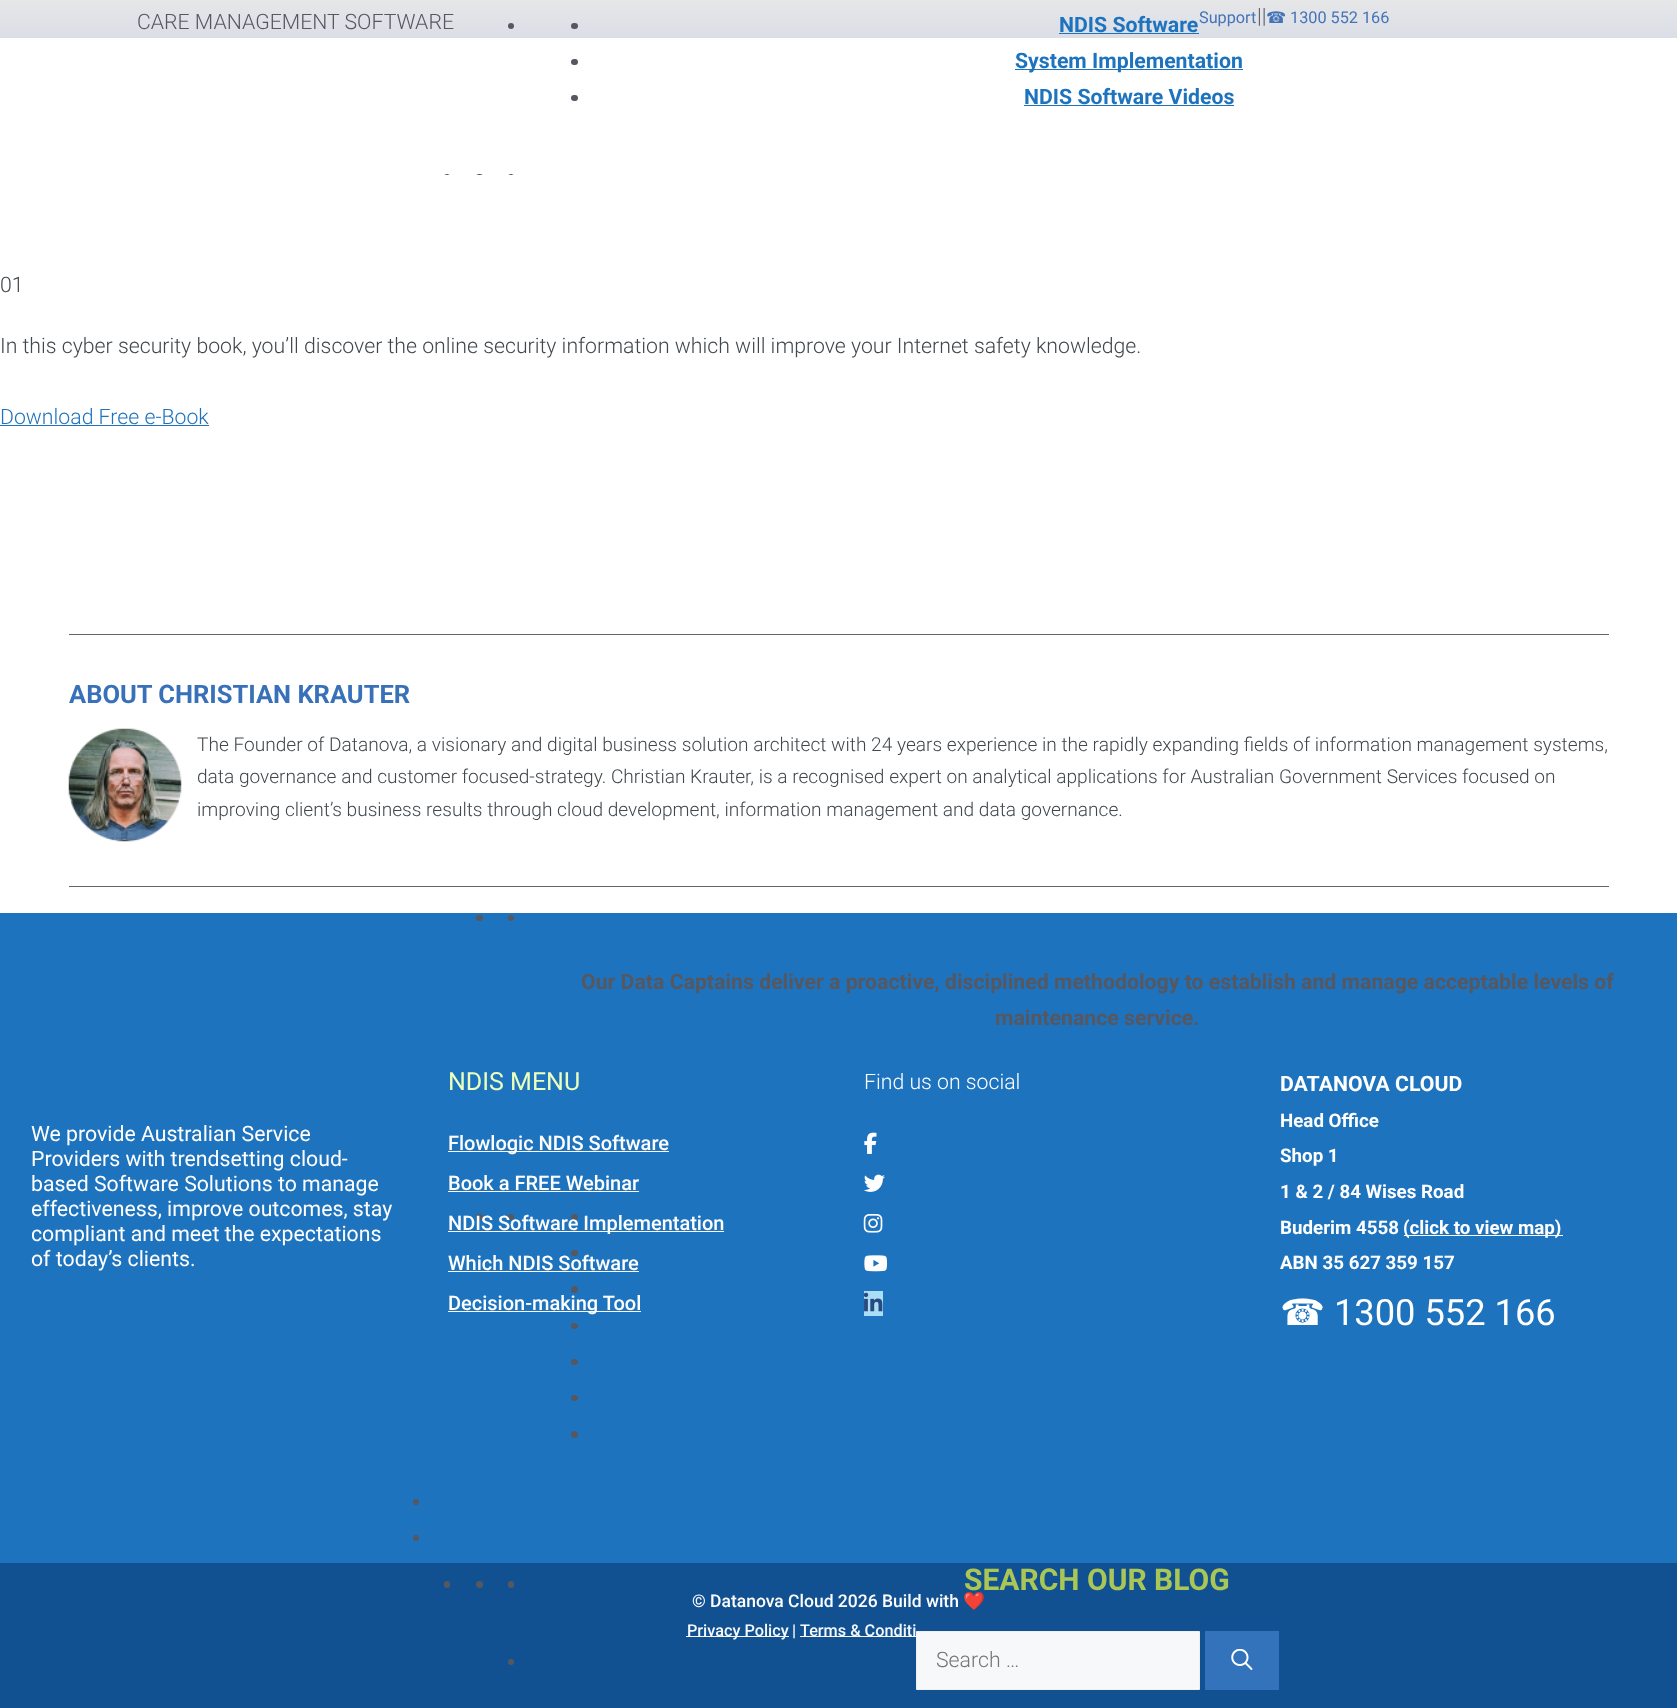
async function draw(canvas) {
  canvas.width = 1677
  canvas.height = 1708
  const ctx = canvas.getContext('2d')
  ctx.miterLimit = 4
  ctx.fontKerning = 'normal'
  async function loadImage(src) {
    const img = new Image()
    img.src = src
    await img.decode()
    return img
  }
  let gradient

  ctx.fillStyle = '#fff'
  ctx.fillRect(0, 0, 1677, 1708)
  gradient = ctx.createLinearGradient(839, 0, 839, 38)
  gradient.addColorStop(0, '#e5e7e8')
  gradient.addColorStop(1, '#dbdee6')
  ctx.fillStyle = gradient
  ctx.fillRect(0, 0, 1677, 38)
  ctx.font = '300 21.25px Roboto'
  ctx.fillStyle = '#575760'
  ctx.fillText('CARE MANAGEMENT SOFTWARE', 137, 29)
  ctx.font = '16.25px Roboto'
  ctx.fillStyle = '#4573b8'
  ctx.fillText('Support', 1199, 23)
  ctx.font = '300 21.25px Roboto'
  ctx.fillStyle = '#575760'
  ctx.fillText('||', 1257, 23)
  ctx.font = '16.25px DejaVu Sans'
  ctx.fillStyle = '#4573b8'
  ctx.fillText('☎', 1266, 23)
  ctx.font = '16.25px Roboto'
  ctx.fillText('1300 552 166', 1290, 23)
  ctx.fillStyle = '#575760'
  ctx.beginPath()
  ctx.arc(511, 26, 3, 0, 2 * Math.PI)
  ctx.fill()
  ctx.beginPath()
  ctx.roundRect(571, 23, 7, 6, 3)
  ctx.fill()
  ctx.font = 'bold 21.25px Roboto'
  ctx.fillStyle = '#1e73be'
  ctx.fillText('NDIS Software', 1059, 32)
  ctx.fillRect(1059, 33, 140, 1)
  ctx.fillStyle = '#575760'
  ctx.beginPath()
  ctx.roundRect(571, 59, 7, 6, 3)
  ctx.fill()
  ctx.fillStyle = '#1e73be'
  ctx.fillRect(1015, 69, 228, 1)
  ctx.fillText('System Implementation', 1015, 68)
  ctx.fillStyle = '#575760'
  ctx.beginPath()
  ctx.roundRect(571, 95, 7, 6, 3)
  ctx.fill()
  ctx.fillStyle = '#1e73be'
  ctx.fillText('NDIS Software Videos', 1024, 104)
  ctx.fillRect(1024, 105, 210, 1)
  ctx.fillStyle = '#575760'
  ctx.beginPath()
  ctx.arc(447, 177, 3, 0, 2 * Math.PI)
  ctx.fill()
  ctx.beginPath()
  ctx.roundRect(476, 174, 7, 6, 3)
  ctx.fill()
  ctx.beginPath()
  ctx.arc(511, 177, 3, 0, 2 * Math.PI)
  ctx.fill()
  ctx.fillStyle = '#1e73be'
  ctx.fillRect(0, 913, 1677, 650)
  ctx.fillStyle = '#575760'
  ctx.beginPath()
  ctx.roundRect(476, 915, 7, 6, 3)
  ctx.fill()
  ctx.beginPath()
  ctx.arc(511, 918, 3, 0, 2 * Math.PI)
  ctx.fill()
  ctx.fillText('Our Data Captains deliver a proactive, disciplined methodology to establish and manage acceptable levels of', 581, 989)
  ctx.fillText('maintenance service.', 995, 1025)
  ctx.beginPath()
  ctx.roundRect(476, 1214, 7, 6, 3)
  ctx.fill()
  ctx.beginPath()
  ctx.arc(511, 1217, 3, 0, 2 * Math.PI)
  ctx.fill()
  ctx.beginPath()
  ctx.roundRect(571, 1214, 7, 6, 3)
  ctx.fill()
  ctx.beginPath()
  ctx.roundRect(571, 1250, 7, 6, 3)
  ctx.fill()
  ctx.beginPath()
  ctx.arc(574.5, 1289.5, 3.5, 0, 2 * Math.PI)
  ctx.fill()
  ctx.beginPath()
  ctx.roundRect(571, 1323, 7, 6, 3)
  ctx.fill()
  ctx.beginPath()
  ctx.roundRect(571, 1359, 7, 6, 3)
  ctx.fill()
  ctx.beginPath()
  ctx.roundRect(571, 1395, 7, 6, 3)
  ctx.fill()
  ctx.beginPath()
  ctx.arc(574.5, 1434.5, 3.5, 0, 2 * Math.PI)
  ctx.fill()
  ctx.beginPath()
  ctx.arc(416, 1502, 3, 0, 2 * Math.PI)
  ctx.fill()
  ctx.beginPath()
  ctx.arc(416, 1538, 3, 0, 2 * Math.PI)
  ctx.fill()
  ctx.fillStyle = '#115191'
  ctx.fillRect(0, 1563, 1677, 145)
  ctx.fillStyle = '#575760'
  ctx.beginPath()
  ctx.roundRect(444, 1581, 6, 7, 3)
  ctx.fill()
  ctx.beginPath()
  ctx.arc(479.5, 1584.5, 3.5, 0, 2 * Math.PI)
  ctx.fill()
  ctx.beginPath()
  ctx.roundRect(508, 1581, 6, 7, 3)
  ctx.fill()
  ctx.font = 'bold 30px Roboto'
  ctx.fillStyle = '#aac755'
  ctx.fillText('SEARCH OUR BLOG', 964, 1590)
  ctx.fillStyle = '#575760'
  ctx.beginPath()
  ctx.arc(511, 1662, 3, 0, 2 * Math.PI)
  ctx.fill()
  ctx.fillStyle = '#f7f8f9'
  ctx.beginPath()
  ctx.rect(916.5, 1631.5, 283, 58)
  ctx.fill()
  ctx.strokeStyle = '#f0f0f0'
  ctx.stroke()
  ctx.font = '300 21.25px Roboto'
  ctx.fillStyle = '#757575'
  ctx.fillText('Search …', 936, 1667)
  ctx.fillStyle = '#3373bc'
  ctx.fillRect(1205, 1631, 74, 59)
  ctx.drawImage(await loadImage('image0.png'), 1231, 1649, 22, 21)
  ctx.fillStyle = '#fff'
  ctx.fillRect(444, 175, 70, 5)
  ctx.fillStyle = '#41484d'
  ctx.fillText('01', 0, 292)
  ctx.fillText('In this cyber security book, you’ll discover the online security information which will improve your Internet safety knowledge.', 0, 353)
  ctx.fillStyle = '#1e73be'
  ctx.fillText('Download Free e-Book', 0, 424)
  ctx.fillRect(0, 425, 209, 1)
  ctx.fillStyle = '#666'
  ctx.fillRect(69, 634, 1540, 1)
  ctx.fillRect(69, 886, 1540, 1)
  ctx.font = 'bold 25.5px Roboto'
  ctx.fillStyle = '#3871b9'
  ctx.fillText('ABOUT CHRISTIAN KRAUTER', 69, 703)
  ctx.drawImage(await loadImage('image1.png'), 68, 728, 114, 114)
  ctx.font = '300 19.12px Roboto'
  ctx.fillStyle = '#41484d'
  ctx.fillText('The Founder of Datanova, a visionary and digital business solution architect with 24 years experience in the rapidly expanding fields of information management systems,', 197, 751)
  ctx.fillText('data governance and customer focused-strategy. Christian Krauter, is a recognised expert on analytical applications for Australian Government Services focused on', 197, 783)
  ctx.fillText('improving client’s business results through cloud development, information management and data governance.', 197, 816)
  ctx.font = '21.25px Roboto'
  ctx.fillStyle = '#fff'
  ctx.fillText('We provide Australian Service', 31, 1141)
  ctx.fillText('Providers with trendsetting cloud-', 31, 1166)
  ctx.fillText('based Software Solutions to manage', 31, 1191)
  ctx.fillText('effectiveness, improve outcomes, stay', 31, 1216)
  ctx.fillText('compliant and meet the expectations', 31, 1241)
  ctx.fillText('of today’s clients.', 31, 1266)
  ctx.font = '25px Roboto'
  ctx.fillStyle = '#ebffbc'
  ctx.fillText('NDIS MENU', 448, 1090)
  ctx.fillStyle = '#fff'
  ctx.fillRect(448, 1151, 221, 1)
  ctx.font = '500 20px Roboto'
  ctx.fillText('Flowlogic NDIS Software', 448, 1150)
  ctx.fillText('Book a FREE Webinar', 448, 1190)
  ctx.fillRect(448, 1191, 191, 1)
  ctx.fillRect(448, 1231, 276, 1)
  ctx.fillText('NDIS Software Implementation', 448, 1230)
  ctx.fillText('Which NDIS Software', 448, 1270)
  ctx.fillRect(448, 1271, 191, 1)
  ctx.fillRect(448, 1311, 193, 1)
  ctx.fillText('Decision-making Tool', 448, 1310)
  ctx.font = '300 21.25px Roboto'
  ctx.fillText('Find us on social', 864, 1089)
  ctx.drawImage(await loadImage('image2.png'), 864, 1132, 13, 22)
  ctx.drawImage(await loadImage('image3.png'), 864, 1174, 21, 18)
  ctx.drawImage(await loadImage('image4.png'), 863, 1214, 20, 19)
  ctx.drawImage(await loadImage('image5.png'), 864, 1255, 24, 17)
  ctx.fillStyle = '#a8def6'
  ctx.fillRect(864, 1291, 19, 25)
  ctx.drawImage(await loadImage('image6.png'), 863, 1292, 20, 20)
  ctx.font = 'bold 21.25px Roboto'
  ctx.fillStyle = '#fff'
  ctx.fillText('DATANOVA CLOUD', 1280, 1091)
  ctx.font = 'bold 18.75px Roboto'
  ctx.fillText('Head Office', 1280, 1127)
  ctx.fillText('Shop 1', 1280, 1162)
  ctx.fillText('1 & 2 / 84 Wises Road', 1280, 1198)
  ctx.fillText('Buderim 4558', 1280, 1234)
  ctx.fillRect(1404, 1235, 159, 1)
  ctx.fillText('(click to view map)', 1403, 1234)
  ctx.fillText('ABN 35 627 359 157', 1280, 1269)
  ctx.font = '36.25px DejaVu Sans'
  ctx.fillText('☎', 1280, 1325)
  ctx.font = '36.25px Roboto'
  ctx.fillText('1300 552 166', 1334, 1325)
  ctx.font = '500 17.5px Roboto'
  ctx.fillText('© Datanova Cloud 2026 Build with', 692, 1607)
  ctx.font = '17.5px Noto Color Emoji'
  ctx.fillText('❤️', 963, 1607)
  ctx.fillStyle = '#f7f8f9'
  ctx.fillRect(686, 1636, 103, 1)
  ctx.font = '500 16.25px Roboto'
  ctx.fillText('Privacy Policy', 687, 1636)
  ctx.fillStyle = '#fff'
  ctx.fillText('|', 792, 1636)
  ctx.fillStyle = '#f7f8f9'
  ctx.fillRect(800, 1636, 117, 1)
  ctx.fillText('Terms & Conditi', 800, 1636)
}

draw(document.querySelector('canvas'))
